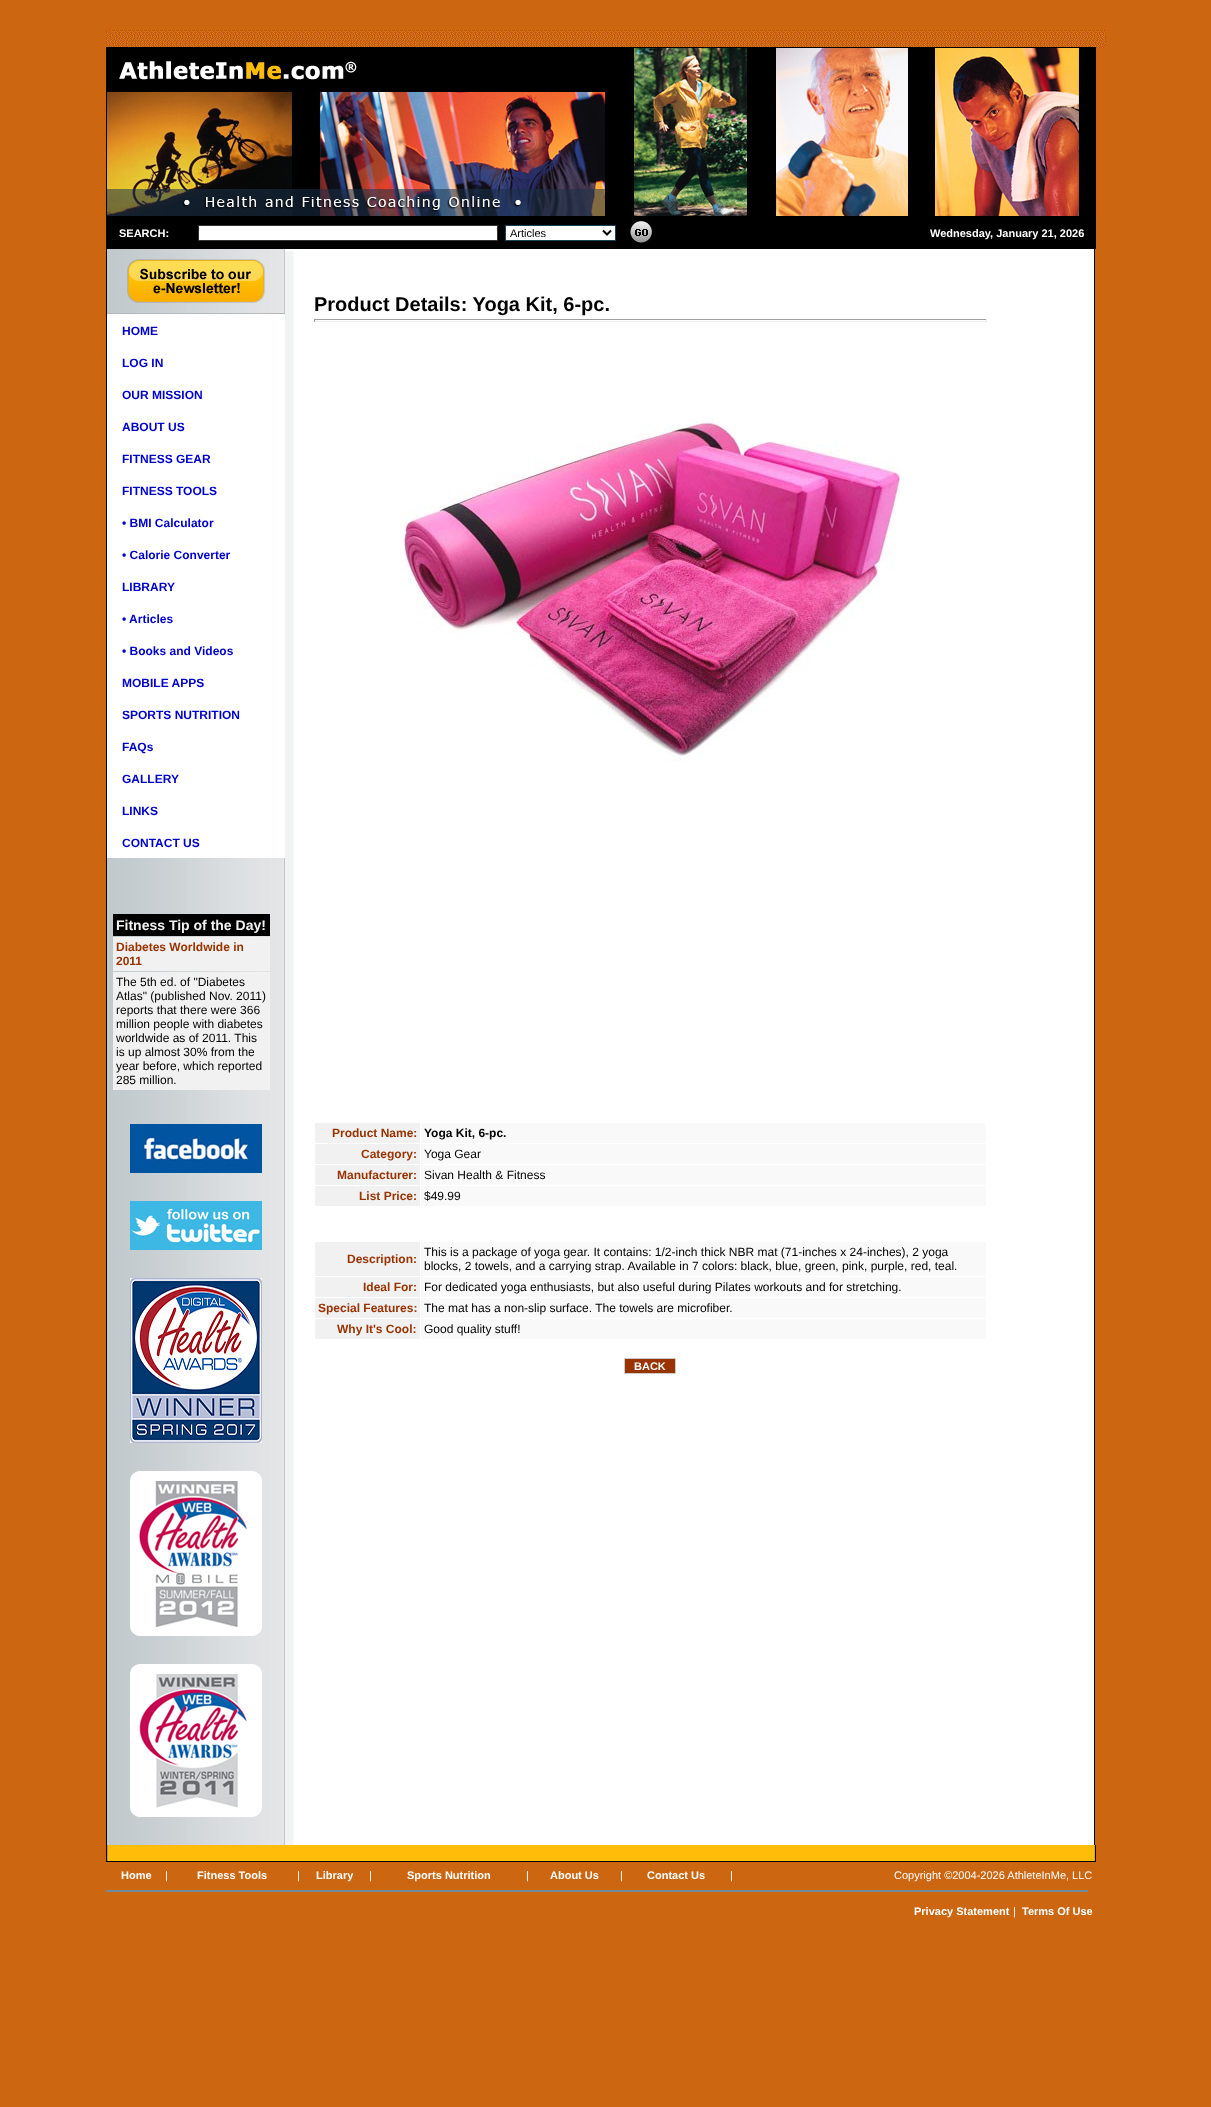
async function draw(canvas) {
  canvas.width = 1211
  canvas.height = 2107
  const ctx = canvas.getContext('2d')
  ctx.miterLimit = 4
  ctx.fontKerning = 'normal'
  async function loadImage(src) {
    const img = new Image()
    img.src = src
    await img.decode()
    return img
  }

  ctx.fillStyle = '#c61'
  ctx.fillRect(0, 0, 1211, 2107)
  ctx.drawImage(await loadImage('image0.png'), 106, 30, 1000, 18)
  ctx.fillStyle = '#000'
  ctx.fillRect(106, 48, 1, 168)
  ctx.fillRect(107, 48, 498, 44)
  ctx.drawImage(await loadImage('image1.png'), 119, 61, 238, 19)
  ctx.drawImage(await loadImage('image2.png'), 107, 92, 498, 124)
  ctx.drawImage(await loadImage('image3.png'), 605, 48, 303, 168)
  ctx.drawImage(await loadImage('image4.png'), 908, 48, 191, 168)
  ctx.fillRect(106, 216, 990, 1)
  ctx.fillRect(106, 217, 990, 32)
  ctx.font = 'bold 11px Liberation Sans'
  ctx.fillStyle = '#fff'
  ctx.fillText('SEARCH:', 119, 237)
  ctx.beginPath()
  ctx.rect(198.5, 225.5, 299, 15)
  ctx.fill()
  ctx.strokeStyle = '#313335'
  ctx.stroke()
  ctx.beginPath()
  ctx.rect(505.5, 225.5, 110, 15)
  ctx.fill()
  ctx.strokeStyle = '#194256'
  ctx.stroke()
  ctx.beginPath()
  ctx.moveTo(603, 230.5)
  ctx.lineTo(607, 234.5)
  ctx.lineTo(611, 230.5)
  ctx.strokeStyle = '#000'
  ctx.lineWidth = 2
  ctx.stroke()
  ctx.font = '11px Liberation Sans'
  ctx.fillStyle = '#000'
  ctx.fillText('Articles', 510, 237)
  ctx.drawImage(await loadImage('image5.png'), 630, 218, 22, 25)
  ctx.font = 'bold 11px Liberation Sans'
  ctx.fillStyle = '#fff'
  ctx.fillText('Wednesday, January 21, 2026', 930, 237)
  ctx.fillStyle = '#000'
  ctx.fillRect(106, 249, 1, 1596)
  ctx.fillStyle = '#f2f4f4'
  ctx.fillRect(285, 249, 8, 1596)
  ctx.fillStyle = '#f8f9f9'
  ctx.fillRect(293, 249, 1, 1596)
  ctx.fillStyle = '#fff'
  ctx.fillRect(285, 249, 9, 2)
  ctx.drawImage(await loadImage('image6.png'), 107, 249, 178, 1596)
  ctx.drawImage(await loadImage('image7.png'), 127, 259, 138, 44)
  ctx.fillStyle = '#b7b9ba'
  ctx.fillRect(107, 313, 178, 1)
  ctx.fillStyle = '#fff'
  ctx.fillRect(107, 314, 178, 544)
  ctx.font = 'bold 12px Liberation Sans'
  ctx.fillStyle = '#00c'
  ctx.fillText('HOME', 122, 335)
  ctx.fillText('LOG IN', 122, 367)
  ctx.fillText('OUR MISSION', 122, 399)
  ctx.fillText('ABOUT US', 122, 431)
  ctx.fillText('FITNESS GEAR', 122, 463)
  ctx.fillText('FITNESS TOOLS', 122, 495)
  ctx.fillText('• BMI Calculator', 122, 527)
  ctx.fillText('• Calorie Converter', 122, 559)
  ctx.fillText('LIBRARY', 122, 591)
  ctx.fillText('• Articles', 122, 623)
  ctx.fillText('• Books and Videos', 122, 655)
  ctx.fillText('MOBILE APPS', 122, 687)
  ctx.fillText('SPORTS NUTRITION', 122, 719)
  ctx.fillText('FAQs', 122, 751)
  ctx.fillText('GALLERY', 122, 783)
  ctx.fillText('LINKS', 122, 815)
  ctx.fillText('CONTACT US', 122, 847)
  ctx.fillStyle = '#000'
  ctx.fillRect(113, 914, 157, 22)
  ctx.font = 'bold 14px Liberation Sans'
  ctx.fillStyle = '#f1f1f1'
  ctx.fillText('Fitness Tip of the Day!', 116, 930)
  ctx.fillRect(113, 937, 157, 34)
  ctx.font = 'bold 12px Liberation Sans'
  ctx.fillStyle = '#930'
  ctx.fillText('Diabetes Worldwide in', 116, 951)
  ctx.fillText('2011', 116, 965)
  ctx.fillStyle = '#f1f1f1'
  ctx.fillRect(113, 972, 157, 118)
  ctx.font = '12px Liberation Sans'
  ctx.fillStyle = '#000'
  ctx.fillText('The 5th ed. of "Diabetes', 116, 986)
  ctx.fillText('Atlas" (published Nov. 2011)', 116, 1000)
  ctx.fillText('reports that there were 366', 116, 1014)
  ctx.fillText('million people with diabetes', 116, 1028)
  ctx.fillText('worldwide as of 2011. This', 116, 1042)
  ctx.fillText('is up almost 30% from the', 116, 1056)
  ctx.fillText('year before, which reported', 116, 1070)
  ctx.fillText('285 million.', 116, 1084)
  ctx.drawImage(await loadImage('image8.png'), 130, 1124, 132, 49)
  ctx.drawImage(await loadImage('image9.png'), 130, 1201, 132, 49)
  ctx.drawImage(await loadImage('image10.png'), 130, 1278, 132, 165)
  ctx.drawImage(await loadImage('image11.png'), 130, 1471, 132, 165)
  ctx.drawImage(await loadImage('image12.png'), 130, 1664, 132, 153)
  ctx.fillStyle = '#fff'
  ctx.fillRect(294, 249, 800, 1596)
  ctx.font = 'bold 20px Liberation Sans'
  ctx.fillStyle = '#000'
  ctx.fillText('Product Details: Yoga Kit, 6-pc.', 314, 311)
  ctx.fillStyle = '#9f9f9f'
  ctx.fillRect(314, 319, 673, 1)
  ctx.fillStyle = '#eee'
  ctx.fillRect(986, 319, 1, 3)
  ctx.fillRect(314, 321, 673, 1)
  ctx.fillStyle = '#9f9f9f'
  ctx.fillRect(314, 319, 1, 3)
  ctx.drawImage(await loadImage('image13.png'), 400, 417, 500, 345)
  ctx.fillStyle = '#f1f1f1'
  ctx.fillRect(315, 1123, 105, 20)
  ctx.font = 'bold 12px Liberation Sans'
  ctx.fillStyle = '#930'
  ctx.fillText('Product Name:', 332, 1137)
  ctx.fillStyle = '#f9f9f9'
  ctx.fillRect(421, 1123, 565, 20)
  ctx.fillStyle = '#000'
  ctx.fillText('Yoga Kit, 6-pc.', 424, 1137)
  ctx.fillStyle = '#f1f1f1'
  ctx.fillRect(315, 1144, 105, 20)
  ctx.fillStyle = '#930'
  ctx.fillText('Category:', 361, 1158)
  ctx.fillStyle = '#f9f9f9'
  ctx.fillRect(421, 1144, 565, 20)
  ctx.font = '12px Liberation Sans'
  ctx.fillStyle = '#000'
  ctx.fillText('Yoga Gear', 424, 1158)
  ctx.fillStyle = '#f1f1f1'
  ctx.fillRect(315, 1165, 105, 20)
  ctx.font = 'bold 12px Liberation Sans'
  ctx.fillStyle = '#930'
  ctx.fillText('Manufacturer:', 337, 1179)
  ctx.fillStyle = '#f9f9f9'
  ctx.fillRect(421, 1165, 565, 20)
  ctx.font = '12px Liberation Sans'
  ctx.fillStyle = '#000'
  ctx.fillText('Sivan Health & Fitness', 424, 1179)
  ctx.fillStyle = '#f1f1f1'
  ctx.fillRect(315, 1186, 105, 20)
  ctx.font = 'bold 12px Liberation Sans'
  ctx.fillStyle = '#930'
  ctx.fillText('List Price:', 359, 1200)
  ctx.fillStyle = '#f9f9f9'
  ctx.fillRect(421, 1186, 565, 20)
  ctx.font = '12px Liberation Sans'
  ctx.fillStyle = '#000'
  ctx.fillText('$49.99', 424, 1200)
  ctx.fillStyle = '#f1f1f1'
  ctx.fillRect(315, 1242, 105, 34)
  ctx.font = 'bold 12px Liberation Sans'
  ctx.fillStyle = '#930'
  ctx.fillText('Description:', 347, 1263)
  ctx.fillStyle = '#f9f9f9'
  ctx.fillRect(421, 1242, 565, 34)
  ctx.font = '12px Liberation Sans'
  ctx.fillStyle = '#000'
  ctx.fillText('This is a package of yoga gear. It contains: 1/2-inch thick NBR mat (71-inches x 24-inches), 2 yoga', 424, 1256)
  ctx.fillText('blocks, 2 towels, and a carrying strap. Available in 7 colors: black, blue, green, pink, purple, red, teal.', 424, 1270)
  ctx.fillStyle = '#f1f1f1'
  ctx.fillRect(315, 1277, 105, 20)
  ctx.font = 'bold 12px Liberation Sans'
  ctx.fillStyle = '#930'
  ctx.fillText('Ideal For:', 363, 1291)
  ctx.fillStyle = '#f9f9f9'
  ctx.fillRect(421, 1277, 565, 20)
  ctx.font = '12px Liberation Sans'
  ctx.fillStyle = '#000'
  ctx.fillText('For dedicated yoga enthusiasts, but also useful during Pilates workouts and for stretching.', 424, 1291)
  ctx.fillStyle = '#f1f1f1'
  ctx.fillRect(315, 1298, 105, 20)
  ctx.font = 'bold 12px Liberation Sans'
  ctx.fillStyle = '#930'
  ctx.fillText('Special Features:', 318, 1312)
  ctx.fillStyle = '#f9f9f9'
  ctx.fillRect(421, 1298, 565, 20)
  ctx.font = '12px Liberation Sans'
  ctx.fillStyle = '#000'
  ctx.fillText('The mat has a non-slip surface. The towels are microfiber.', 424, 1312)
  ctx.fillStyle = '#f1f1f1'
  ctx.fillRect(315, 1319, 105, 20)
  ctx.font = 'bold 12px Liberation Sans'
  ctx.fillStyle = '#930'
  ctx.fillText('Why It\'s Cool:', 337, 1333)
  ctx.fillStyle = '#f9f9f9'
  ctx.fillRect(421, 1319, 565, 20)
  ctx.font = '12px Liberation Sans'
  ctx.fillStyle = '#000'
  ctx.fillText('Good quality stuff!', 424, 1333)
  ctx.fillStyle = '#930'
  ctx.beginPath()
  ctx.rect(624.5, 1358.5, 51, 15)
  ctx.fill()
  ctx.strokeStyle = '#ccc'
  ctx.lineWidth = 1
  ctx.stroke()
  ctx.font = 'bold 11px Liberation Sans'
  ctx.fillStyle = '#fff'
  ctx.fillText('BACK', 634, 1370)
  ctx.fillStyle = '#000'
  ctx.fillRect(1094, 249, 1, 1596)
  ctx.drawImage(await loadImage('image14.png'), 106, 1845, 990, 17)
  ctx.fillStyle = '#fff'
  ctx.fillText('Home', 121, 1879)
  ctx.font = '11px Liberation Sans'
  ctx.fillText('|', 165, 1879)
  ctx.font = 'bold 11px Liberation Sans'
  ctx.fillText('Fitness Tools', 197, 1879)
  ctx.font = '11px Liberation Sans'
  ctx.fillText('|', 297, 1879)
  ctx.font = 'bold 11px Liberation Sans'
  ctx.fillText('Library', 316, 1879)
  ctx.font = '11px Liberation Sans'
  ctx.fillText('|', 369, 1879)
  ctx.font = 'bold 11px Liberation Sans'
  ctx.fillText('Sports Nutrition', 407, 1879)
  ctx.font = '11px Liberation Sans'
  ctx.fillText('|', 526, 1879)
  ctx.font = 'bold 11px Liberation Sans'
  ctx.fillText('About Us', 550, 1879)
  ctx.font = '11px Liberation Sans'
  ctx.fillText('|', 620, 1879)
  ctx.font = 'bold 11px Liberation Sans'
  ctx.fillText('Contact Us', 647, 1879)
  ctx.font = '11px Liberation Sans'
  ctx.fillText('|', 730, 1879)
  ctx.fillText('Copyright ©2004-2026 AthleteInMe, LLC', 894, 1879)
  ctx.fillStyle = '#708a9b'
  ctx.fillRect(107, 1891, 980, 1)
  ctx.fillRect(106, 1890, 982, 1)
  ctx.fillRect(1087, 1890, 1, 2)
  ctx.fillRect(106, 1890, 1, 2)
  ctx.font = 'bold 11px Liberation Sans'
  ctx.fillStyle = '#fff'
  ctx.fillText('Privacy Statement', 914, 1915)
  ctx.font = '11px Liberation Sans'
  ctx.fillText('|', 1013, 1915)
  ctx.font = 'bold 11px Liberation Sans'
  ctx.fillText('Terms Of Use', 1022, 1915)
}

draw(document.querySelector('canvas'))
